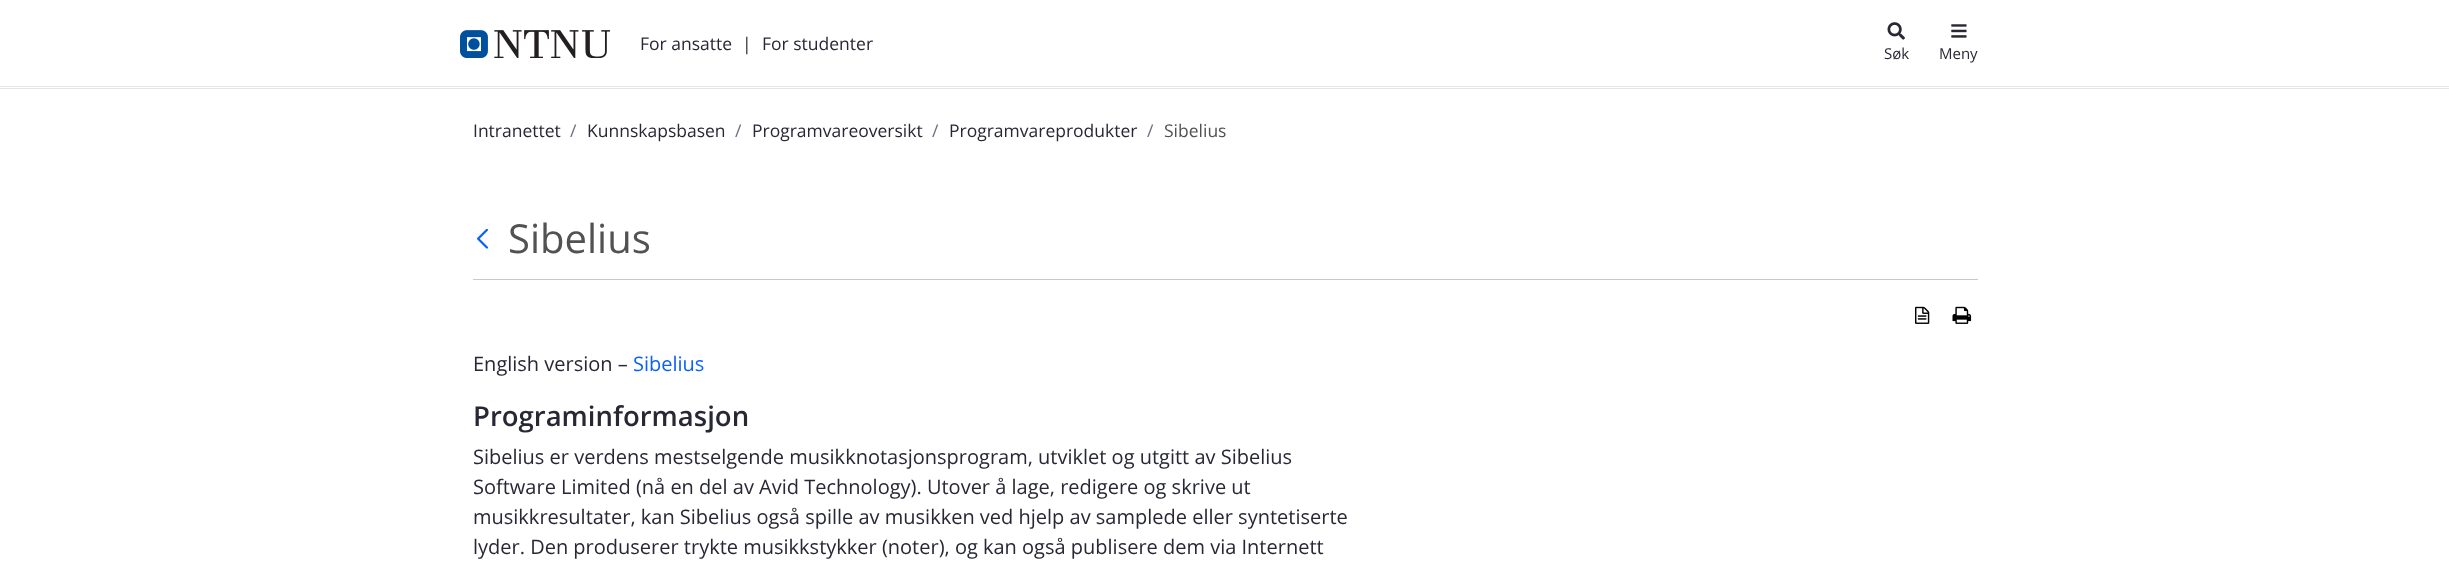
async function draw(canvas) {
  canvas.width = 2449
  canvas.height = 570
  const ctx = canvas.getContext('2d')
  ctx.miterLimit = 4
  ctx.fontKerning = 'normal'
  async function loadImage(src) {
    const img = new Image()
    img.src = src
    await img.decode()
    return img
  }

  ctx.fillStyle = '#fff'
  ctx.fillRect(0, 0, 2449, 570)
  ctx.fillStyle = '#e4e4e4'
  ctx.fillRect(0, 88, 2449, 1)
  ctx.fillStyle = '#e7e7ed'
  ctx.fillRect(0, 86, 2449, 1)
  ctx.drawImage(await loadImage('image0.png'), 460, 30, 150, 28)
  ctx.font = '17.5px Open Sans'
  ctx.fillStyle = '#272834'
  ctx.fillText('For ansatte', 640, 50)
  ctx.fillText('|', 742, 50)
  ctx.fillText('For studenter', 762, 50)
  ctx.drawImage(await loadImage('image1.png'), 1887, 22, 18, 18)
  ctx.font = '15px Open Sans'
  ctx.fillText('Søk', 1884, 59)
  ctx.drawImage(await loadImage('image2.png'), 1951, 24, 16, 14)
  ctx.fillText('Meny', 1939, 59)
  ctx.font = '17.5px Open Sans'
  ctx.fillText('Intranettet', 473, 137)
  ctx.fillStyle = '#6b6c7e'
  ctx.fillText('/', 570, 137)
  ctx.fillStyle = '#272834'
  ctx.fillText('Kunnskapsbasen', 587, 137)
  ctx.fillStyle = '#6b6c7e'
  ctx.fillText('/', 735, 137)
  ctx.fillStyle = '#272834'
  ctx.fillText('Programvareoversikt', 752, 137)
  ctx.fillStyle = '#6b6c7e'
  ctx.fillText('/', 932, 137)
  ctx.fillStyle = '#272834'
  ctx.fillText('Programvareprodukter', 949, 137)
  ctx.fillStyle = '#6b6c7e'
  ctx.fillText('/', 1147, 137)
  ctx.fillStyle = '#525252'
  ctx.fillText('Sibelius', 1164, 137)
  ctx.fillStyle = '#c8c9ca'
  ctx.fillRect(473, 279, 1505, 1)
  ctx.drawImage(await loadImage('image3.png'), 477, 229, 11, 20)
  ctx.font = '40px Open Sans'
  ctx.fillStyle = '#525252'
  ctx.fillText('Sibelius', 508, 253)
  ctx.drawImage(await loadImage('image4.png'), 1915, 306, 15, 18)
  ctx.drawImage(await loadImage('image5.png'), 1952, 306, 20, 18)
  ctx.font = '20px Open Sans'
  ctx.fillStyle = '#272834'
  ctx.fillText('English version –', 473, 371)
  ctx.fillStyle = '#0b5fff'
  ctx.fillText('Sibelius', 633, 371)
  ctx.font = '600 27.5px Open Sans'
  ctx.fillStyle = '#272834'
  ctx.fillText('Programinformasjon', 473, 426)
  ctx.font = '20px Open Sans'
  ctx.fillText('Sibelius er verdens mestselgende musikknotasjonsprogram, utviklet og utgitt av Sibelius', 473, 464)
  ctx.fillText('Software Limited (nå en del av Avid Technology). Utover å lage, redigere og skrive ut', 473, 494)
  ctx.fillText('musikkresultater, kan Sibelius også spille av musikken ved hjelp av samplede eller syntetiserte', 473, 524)
  ctx.fillText('lyder. Den produserer trykte musikkstykker (noter), og kan også publisere dem via Internett', 473, 554)
}

draw(document.querySelector('canvas'))
